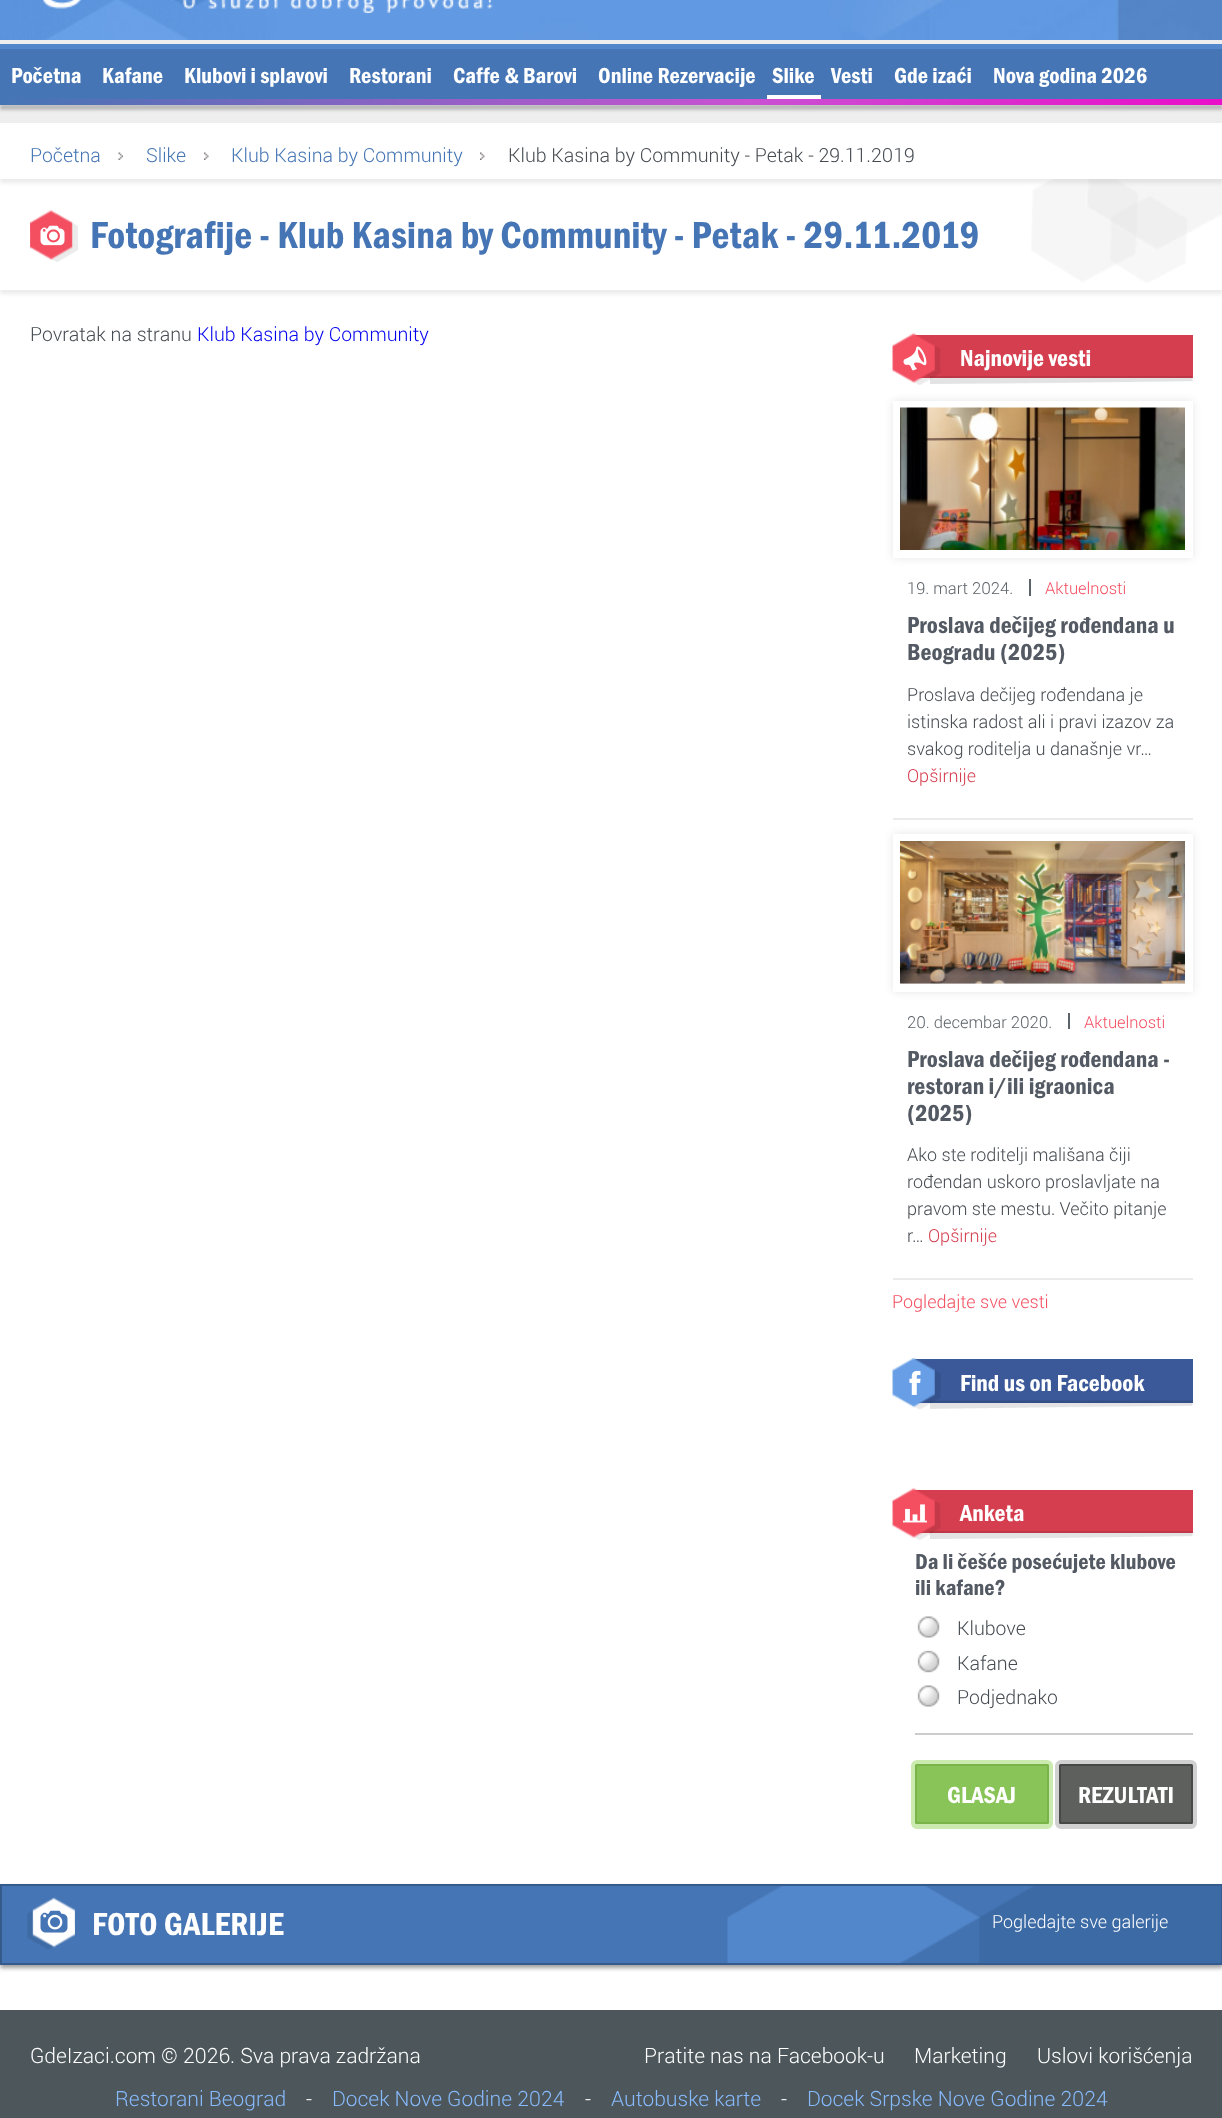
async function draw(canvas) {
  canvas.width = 1222
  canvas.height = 2118
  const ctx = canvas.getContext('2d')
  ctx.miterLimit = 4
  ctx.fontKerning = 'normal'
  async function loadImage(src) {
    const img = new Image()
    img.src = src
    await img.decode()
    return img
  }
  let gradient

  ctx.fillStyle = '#eee'
  ctx.fillRect(0, 0, 1222, 2118)
  ctx.drawImage(await loadImage('image0.png'), 0, 0, 1222, 40)
  ctx.drawImage(await loadImage('image1.png'), 42, 0, 451, 13)
  ctx.fillStyle = '#4575b4'
  ctx.fillRect(0, 49, 1222, 50)
  ctx.fillStyle = '#5287cc'
  ctx.fillRect(0, 44, 1222, 5)
  ctx.font = '22.5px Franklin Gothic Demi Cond'
  ctx.fillStyle = '#fff'
  ctx.fillText('Početna', 11, 83)
  ctx.fillText('Kafane', 102, 83)
  ctx.fillText('Klubovi i splavovi', 184, 83)
  ctx.fillText('Restorani', 349, 83)
  ctx.fillText('Caffe & Barovi', 453, 83)
  ctx.fillText('Online Rezervacije', 598, 83)
  ctx.fillRect(767, 95, 54, 4)
  ctx.fillText('Slike', 772, 83)
  ctx.fillText('Vesti', 831, 83)
  ctx.fillText('Gde izaći', 894, 83)
  ctx.fillText('Nova godina 2026', 993, 83)
  ctx.fillStyle = '#00000036'
  ctx.filter = 'blur(1.5px)'
  ctx.beginPath()
  ctx.rect(0, 104, 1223, 6)
  ctx.fill()
  ctx.filter = 'none'
  gradient = ctx.createLinearGradient(0, 102, 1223, 102)
  gradient.addColorStop(0, '#4575b4')
  gradient.addColorStop(0.61, '#c951d2')
  gradient.addColorStop(1, '#ea0ec9')
  ctx.fillStyle = gradient
  ctx.fillRect(0, 99, 1222, 6)
  ctx.fillStyle = '#fff'
  ctx.fillRect(0, 290, 1222, 1720)
  ctx.fillStyle = '#00000014'
  ctx.filter = 'blur(2px)'
  ctx.beginPath()
  ctx.rect(0, 183, 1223, 111)
  ctx.fill()
  ctx.filter = 'none'
  ctx.fillStyle = '#fff'
  ctx.fillRect(0, 179, 1222, 111)
  ctx.drawImage(await loadImage('image5.png'), 1031, 179, 191, 104)
  ctx.fillStyle = '#00000014'
  ctx.filter = 'blur(2px)'
  ctx.beginPath()
  ctx.rect(0, 128, 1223, 55)
  ctx.fill()
  ctx.filter = 'none'
  ctx.fillStyle = '#fff'
  ctx.fillRect(0, 123, 1222, 56)
  ctx.font = '300 19.5px Roboto'
  ctx.fillStyle = '#4575b4'
  ctx.fillText('Početna', 30, 162)
  ctx.drawImage(await loadImage('image2.png'), 118, 152, 5, 8)
  ctx.fillText('Slike', 146, 162)
  ctx.drawImage(await loadImage('image3.png'), 204, 152, 5, 8)
  ctx.fillText('Klub Kasina by Community', 231, 162)
  ctx.drawImage(await loadImage('image4.png'), 480, 152, 5, 8)
  ctx.fillStyle = '#454b51'
  ctx.fillText('Klub Kasina by Community - Petak - 29.11.2019', 508, 162)
  ctx.drawImage(await loadImage('image6.png'), 30, 209, 48, 53)
  ctx.drawImage(await loadImage('image7.png'), 40, 225, 25, 21)
  ctx.font = '39px Franklin Gothic Demi Cond'
  ctx.fillStyle = '#4575b4'
  ctx.fillText('Fotografije - Klub Kasina by Community - Petak - 29.11.2019', 90, 248)
  ctx.font = '300 19.5px Roboto'
  ctx.fillStyle = '#454b51'
  ctx.fillText('Povratak na stranu', 30, 341)
  ctx.fillStyle = '#00e'
  ctx.fillText('Klub Kasina by Community', 197, 341)
  ctx.fillStyle = '#d53e4f'
  ctx.fillRect(915, 335, 278, 43)
  ctx.drawImage(await loadImage('image10.png'), 929, 376, 264, 8)
  ctx.drawImage(await loadImage('image8.png'), 892, 332, 49, 53)
  ctx.drawImage(await loadImage('image9.png'), 903, 346, 24, 25)
  ctx.font = '24px Franklin Gothic Demi Cond'
  ctx.fillStyle = '#fff'
  ctx.fillText('Najnovije vesti', 960, 366)
  ctx.fillStyle = '#ebebeb'
  ctx.fillRect(893, 818, 300, 2)
  ctx.fillStyle = '#0000001a'
  ctx.filter = 'blur(4px)'
  ctx.beginPath()
  ctx.rect(893, 401, 300, 157)
  ctx.fill()
  ctx.filter = 'none'
  ctx.strokeStyle = '#fff'
  ctx.lineWidth = 8
  ctx.strokeRect(897, 405, 292, 149)
  ctx.drawImage(await loadImage('image11.png'), 900, 407, 285, 143)
  ctx.fillStyle = '#5c6369'
  ctx.fillRect(1029, 579, 2, 17)
  ctx.font = '300 16.5px Roboto'
  ctx.fillText('19. mart 2024.', 907, 594)
  ctx.fillStyle = '#f44e61'
  ctx.fillText('Aktuelnosti', 1045, 594)
  ctx.font = '24px Franklin Gothic Demi Cond'
  ctx.fillStyle = '#545a63'
  ctx.fillText('Proslava dečijeg rođendana u', 907, 633)
  ctx.fillText('Beogradu (2025)', 907, 660)
  ctx.font = '300 18px Roboto'
  ctx.fillStyle = '#454b51'
  ctx.fillText('Proslava dečijeg rođendana je', 907, 701)
  ctx.fillText('istinska radost ali i pravi izazov za', 907, 728)
  ctx.fillText('svakog roditelja u današnje vr…', 907, 755)
  ctx.fillStyle = '#d53e4f'
  ctx.fillText('Opširnije', 907, 782)
  ctx.fillStyle = '#ebebeb'
  ctx.fillRect(893, 1278, 300, 2)
  ctx.fillStyle = '#0000001a'
  ctx.filter = 'blur(4px)'
  ctx.beginPath()
  ctx.rect(893, 834, 300, 158)
  ctx.fill()
  ctx.filter = 'none'
  ctx.strokeRect(897, 838, 292, 150)
  ctx.drawImage(await loadImage('image12.png'), 900, 841, 285, 143)
  ctx.fillStyle = '#5c6369'
  ctx.fillRect(1068, 1013, 2, 16)
  ctx.font = '300 16.5px Roboto'
  ctx.fillText('20. decembar 2020.', 907, 1028)
  ctx.fillStyle = '#f44e61'
  ctx.fillText('Aktuelnosti', 1084, 1028)
  ctx.font = '24px Franklin Gothic Demi Cond'
  ctx.fillStyle = '#545a63'
  ctx.fillText('Proslava dečijeg rođendana -', 907, 1067)
  ctx.fillText('restoran i/ili igraonica', 907, 1094)
  ctx.fillText('(2025)', 907, 1121)
  ctx.font = '300 18px Roboto'
  ctx.fillStyle = '#454b51'
  ctx.fillText('Ako ste roditelji mališana čiji', 907, 1161)
  ctx.fillText('rođendan uskoro proslavljate na', 907, 1188)
  ctx.fillText('pravom ste mestu. Večito pitanje', 907, 1215)
  ctx.fillText('r…', 907, 1242)
  ctx.fillStyle = '#d53e4f'
  ctx.fillText('Opširnije', 928, 1242)
  ctx.fillStyle = '#f44e61'
  ctx.fillText('Pogledajte sve vesti', 892, 1308)
  ctx.fillStyle = '#3b5998'
  ctx.fillRect(915, 1359, 278, 44)
  ctx.drawImage(await loadImage('image15.png'), 930, 1400, 263, 9)
  ctx.drawImage(await loadImage('image13.png'), 892, 1357, 49, 53)
  ctx.drawImage(await loadImage('image14.png'), 909, 1370, 12, 25)
  ctx.font = '24px Franklin Gothic Demi Cond'
  ctx.fillStyle = '#fff'
  ctx.fillText('Find us on Facebook', 960, 1391)
  ctx.fillStyle = '#d53e4f'
  ctx.fillRect(915, 1490, 278, 43)
  ctx.drawImage(await loadImage('image10.png'), 929, 1531, 264, 8)
  ctx.drawImage(await loadImage('image8.png'), 892, 1487, 49, 53)
  ctx.drawImage(await loadImage('image16.png'), 903, 1504, 24, 19)
  ctx.fillStyle = '#fff'
  ctx.fillText('Anketa', 960, 1521)
  ctx.font = '22.5px Franklin Gothic Demi Cond'
  ctx.fillStyle = '#545a63'
  ctx.fillText('Da li češće posećujete klubove', 915, 1569)
  ctx.fillText('ili kafane?', 915, 1595)
  ctx.fillStyle = '#ccc'
  ctx.fillRect(915, 1733, 278, 2)
  ctx.drawImage(await loadImage('image17.png'), 917, 1616, 23, 22)
  ctx.font = '300 19.5px Roboto'
  ctx.fillStyle = '#454b51'
  ctx.fillText('Klubove', 957, 1635)
  ctx.drawImage(await loadImage('image18.png'), 917, 1650, 23, 23)
  ctx.fillText('Kafane', 957, 1670)
  ctx.drawImage(await loadImage('image17.png'), 917, 1685, 23, 22)
  ctx.fillText('Podjednako', 957, 1704)
  ctx.beginPath()
  ctx.roundRect(913.5, 1762.5, 137, 64, 3.5)
  ctx.strokeStyle = '#caeab0'
  ctx.lineWidth = 5
  ctx.stroke()
  ctx.fillStyle = '#88c458'
  ctx.beginPath()
  ctx.roundRect(916, 1765, 132, 58, 0.5)
  ctx.fill()
  ctx.strokeStyle = '#79b34a'
  ctx.lineWidth = 2
  ctx.stroke()
  ctx.font = '24px Franklin Gothic Demi Cond'
  ctx.fillStyle = '#fff'
  ctx.fillText('GLASAJ', 947, 1803)
  ctx.beginPath()
  ctx.roundRect(1057.5, 1762.5, 137, 64, 3.5)
  ctx.strokeStyle = '#d1d1d1'
  ctx.lineWidth = 5
  ctx.stroke()
  ctx.fillStyle = '#5e605d'
  ctx.beginPath()
  ctx.roundRect(1060, 1765, 132, 58, 0.5)
  ctx.fill()
  ctx.strokeStyle = '#474946'
  ctx.lineWidth = 2
  ctx.stroke()
  ctx.fillStyle = '#fff'
  ctx.fillText('REZULTATI', 1078, 1803)
  ctx.fillStyle = '#00000061'
  ctx.filter = 'blur(2px)'
  ctx.beginPath()
  ctx.rect(0, 1887, 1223, 81)
  ctx.fill()
  ctx.filter = 'none'
  ctx.fillStyle = '#4575b4'
  ctx.fillRect(2, 1886, 1219, 77)
  ctx.drawImage(await loadImage('image19.png'), 727, 1886, 494, 77)
  ctx.strokeStyle = '#355b8c'
  ctx.strokeRect(1, 1885, 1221, 79)
  ctx.drawImage(await loadImage('image20.png'), 27, 1897, 48, 53)
  ctx.drawImage(await loadImage('image21.png'), 40, 1910, 28, 23)
  ctx.font = '33px Franklin Gothic Demi Cond'
  ctx.fillStyle = '#fff'
  ctx.fillText('FOTO GALERIJE', 92, 1935)
  ctx.font = '300 18px Roboto'
  ctx.fillText('Pogledajte sve galerije', 992, 1928)
  ctx.fillStyle = '#4d575b'
  ctx.fillRect(0, 2010, 1222, 108)
  ctx.font = '300 21px Roboto'
  ctx.fillStyle = '#fff'
  ctx.fillText('GdeIzaci.com © 2026. Sva prava zadržana', 30, 2063)
  ctx.fillText('Pratite nas na Facebook-u', 644, 2063)
  ctx.fillText('Marketing', 914, 2063)
  ctx.fillText('Uslovi korišćenja', 1037, 2063)
  ctx.fillStyle = '#87bafc'
  ctx.fillText('Restorani Beograd', 115, 2106)
  ctx.fillStyle = '#fff'
  ctx.fillText('-', 306, 2106)
  ctx.fillStyle = '#87bafc'
  ctx.fillText('Docek Nove Godine 2024', 332, 2106)
  ctx.fillStyle = '#fff'
  ctx.fillText('-', 585, 2106)
  ctx.fillStyle = '#87bafc'
  ctx.fillText('Autobuske karte', 611, 2106)
  ctx.fillStyle = '#fff'
  ctx.fillText('-', 781, 2106)
  ctx.fillStyle = '#87bafc'
  ctx.fillText('Docek Srpske Nove Godine 2024', 807, 2106)
}

draw(document.querySelector('canvas'))
